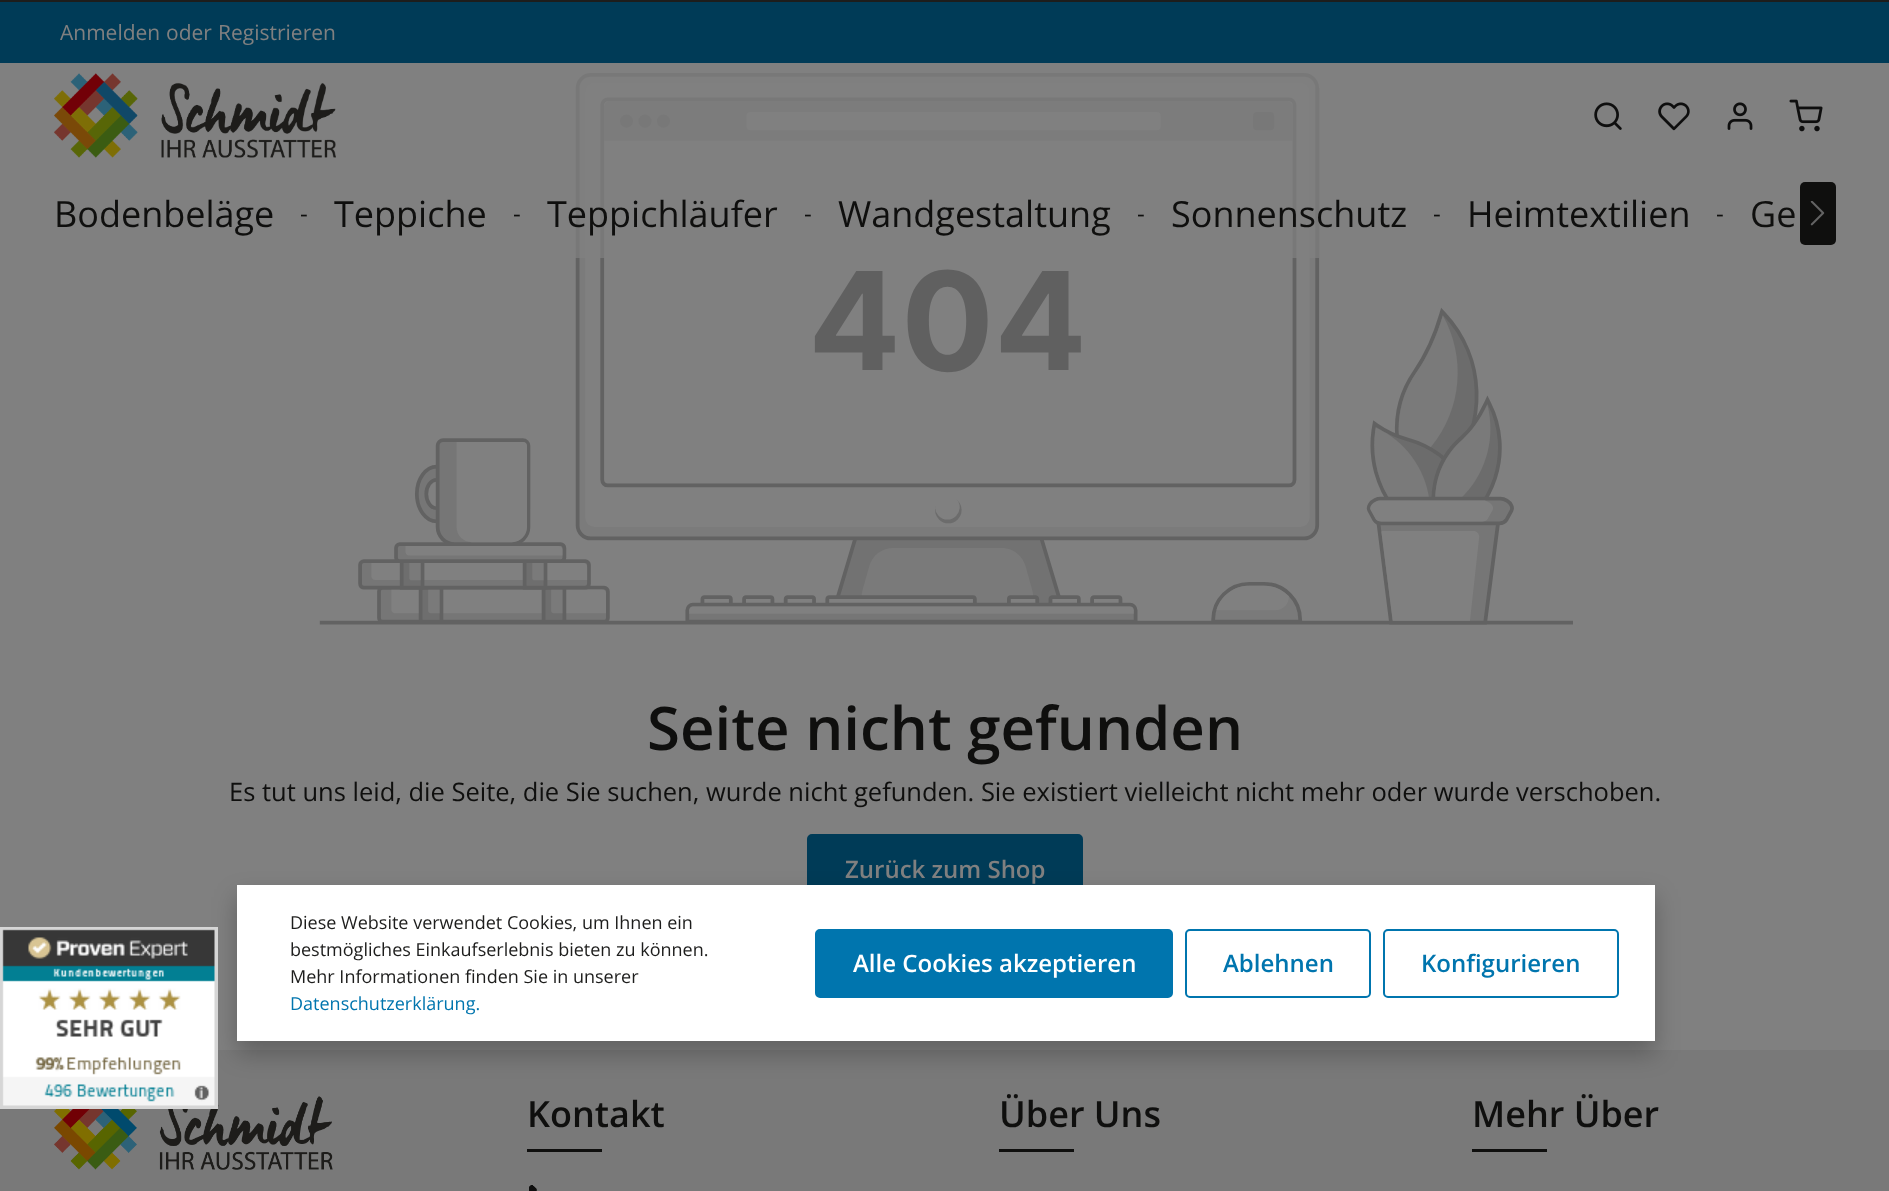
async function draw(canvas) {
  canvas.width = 1889
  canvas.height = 1191
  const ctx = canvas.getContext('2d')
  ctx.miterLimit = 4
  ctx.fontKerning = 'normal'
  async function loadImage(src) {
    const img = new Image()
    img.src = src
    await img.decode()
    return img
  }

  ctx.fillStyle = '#808080'
  ctx.fillRect(0, 0, 1889, 1191)
  ctx.fillStyle = '#003b57'
  ctx.fillRect(0, 2, 1889, 61)
  ctx.font = '21px Open Sans'
  ctx.fillStyle = '#808080'
  ctx.fillText('Anmelden', 60, 40)
  ctx.fillText('oder', 166, 40)
  ctx.fillText('Registrieren', 218, 40)
  ctx.drawImage(await loadImage('image6.png'), 319, 73, 1254, 552)
  ctx.fillStyle = '#808080bf'
  ctx.fillRect(575, 73, 744, 95)
  ctx.drawImage(await loadImage('image0.png'), 54, 73, 282, 85)
  ctx.drawImage(await loadImage('image1.png'), 1594, 102, 28, 28)
  ctx.drawImage(await loadImage('image2.png'), 1658, 102, 32, 29)
  ctx.drawImage(await loadImage('image3.png'), 1727, 102, 26, 28)
  ctx.drawImage(await loadImage('image4.png'), 1789, 99, 34, 33)
  ctx.fillRect(575, 168, 744, 90)
  ctx.font = '36px Open Sans'
  ctx.fillStyle = '#0f0f0e'
  ctx.fillText('Bodenbeläge', 54, 227)
  ctx.font = '24px Open Sans'
  ctx.fillText('-', 300, 222)
  ctx.font = '36px Open Sans'
  ctx.fillText('Teppiche', 334, 227)
  ctx.font = '24px Open Sans'
  ctx.fillText('-', 513, 222)
  ctx.font = '36px Open Sans'
  ctx.fillText('Teppichläufer', 547, 227)
  ctx.font = '24px Open Sans'
  ctx.fillText('-', 804, 222)
  ctx.font = '36px Open Sans'
  ctx.fillText('Wandgestaltung', 838, 227)
  ctx.font = '24px Open Sans'
  ctx.fillText('-', 1137, 222)
  ctx.font = '36px Open Sans'
  ctx.fillText('Sonnenschutz', 1171, 227)
  ctx.font = '24px Open Sans'
  ctx.fillText('-', 1433, 222)
  ctx.font = '36px Open Sans'
  ctx.fillText('Heimtextilien', 1467, 227)
  ctx.font = '24px Open Sans'
  ctx.fillText('-', 1716, 222)
  ctx.font = '36px Open Sans'
  ctx.fillText('Ge', 1750, 227)
  ctx.beginPath()
  ctx.roundRect(1800, 182, 36, 63, 5)
  ctx.fill()
  ctx.drawImage(await loadImage('image5.png'), 1810, 201, 15, 25)
  ctx.font = '600 60px Open Sans'
  ctx.fillText('Seite nicht gefunden', 647, 750)
  ctx.font = '25.5px Open Sans'
  ctx.fillText('Es tut uns leid, die Seite, die Sie suchen, wurde nicht gefunden. Sie existiert vielleicht nicht mehr oder wurde verschoben.', 229, 801)
  ctx.fillStyle = '#003b57'
  ctx.beginPath()
  ctx.roundRect(808, 835, 274, 67, 4)
  ctx.fill()
  ctx.strokeStyle = '#003b57'
  ctx.lineWidth = 2
  ctx.stroke()
  ctx.font = '600 24px Open Sans'
  ctx.fillStyle = '#808080'
  ctx.fillText('Zurück zum Shop', 845, 878)
  ctx.fillStyle = '#797979'
  ctx.fillRect(0, 1050, 1889, 141)
  ctx.drawImage(await loadImage('image7.png'), 54, 1096, 279, 74)
  ctx.font = '600 36px Open Sans'
  ctx.fillStyle = '#0f0f0e'
  ctx.fillText('Kontakt', 527, 1127)
  ctx.fillRect(527, 1149, 75, 3)
  ctx.drawImage(await loadImage('image8.png'), 529, 1185, 8, 6)
  ctx.fillText('Über Uns', 999, 1127)
  ctx.fillRect(999, 1149, 75, 3)
  ctx.fillText('Mehr Über', 1472, 1127)
  ctx.fillRect(1472, 1149, 75, 3)
  ctx.fillStyle = '#00000040'
  ctx.filter = 'blur(12px)'
  ctx.beginPath()
  ctx.rect(237, 897, 1418, 156)
  ctx.fill()
  ctx.filter = 'none'
  ctx.drawImage(await loadImage('image9.png'), 0, 927, 218, 182)
  ctx.fillStyle = '#1d1d1c'
  ctx.fillRect(0, 0, 1889, 2)
  ctx.fillStyle = '#fff'
  ctx.fillRect(237, 885, 1418, 156)
  ctx.font = '18px Open Sans'
  ctx.fillStyle = '#1d1d1c'
  ctx.fillText('Diese Website verwendet Cookies, um Ihnen ein', 290, 929)
  ctx.fillText('bestmögliches Einkaufserlebnis bieten zu können.', 290, 956)
  ctx.fillText('Mehr Informationen finden Sie in unserer', 290, 983)
  ctx.fillStyle = '#0075ae'
  ctx.fillText('Datenschutzerklärung.', 290, 1010)
  ctx.beginPath()
  ctx.roundRect(816, 930, 356, 67, 4)
  ctx.fill()
  ctx.strokeStyle = '#0075ae'
  ctx.stroke()
  ctx.font = '600 24px Open Sans'
  ctx.fillStyle = '#fff'
  ctx.fillText('Alle Cookies akzeptieren', 853, 972)
  ctx.beginPath()
  ctx.roundRect(1186, 930, 184, 67, 4)
  ctx.stroke()
  ctx.fillStyle = '#0075ae'
  ctx.fillText('Ablehnen', 1223, 972)
  ctx.beginPath()
  ctx.roundRect(1384, 930, 234, 67, 4)
  ctx.stroke()
  ctx.fillText('Konfigurieren', 1421, 972)
}

draw(document.querySelector('canvas'))
